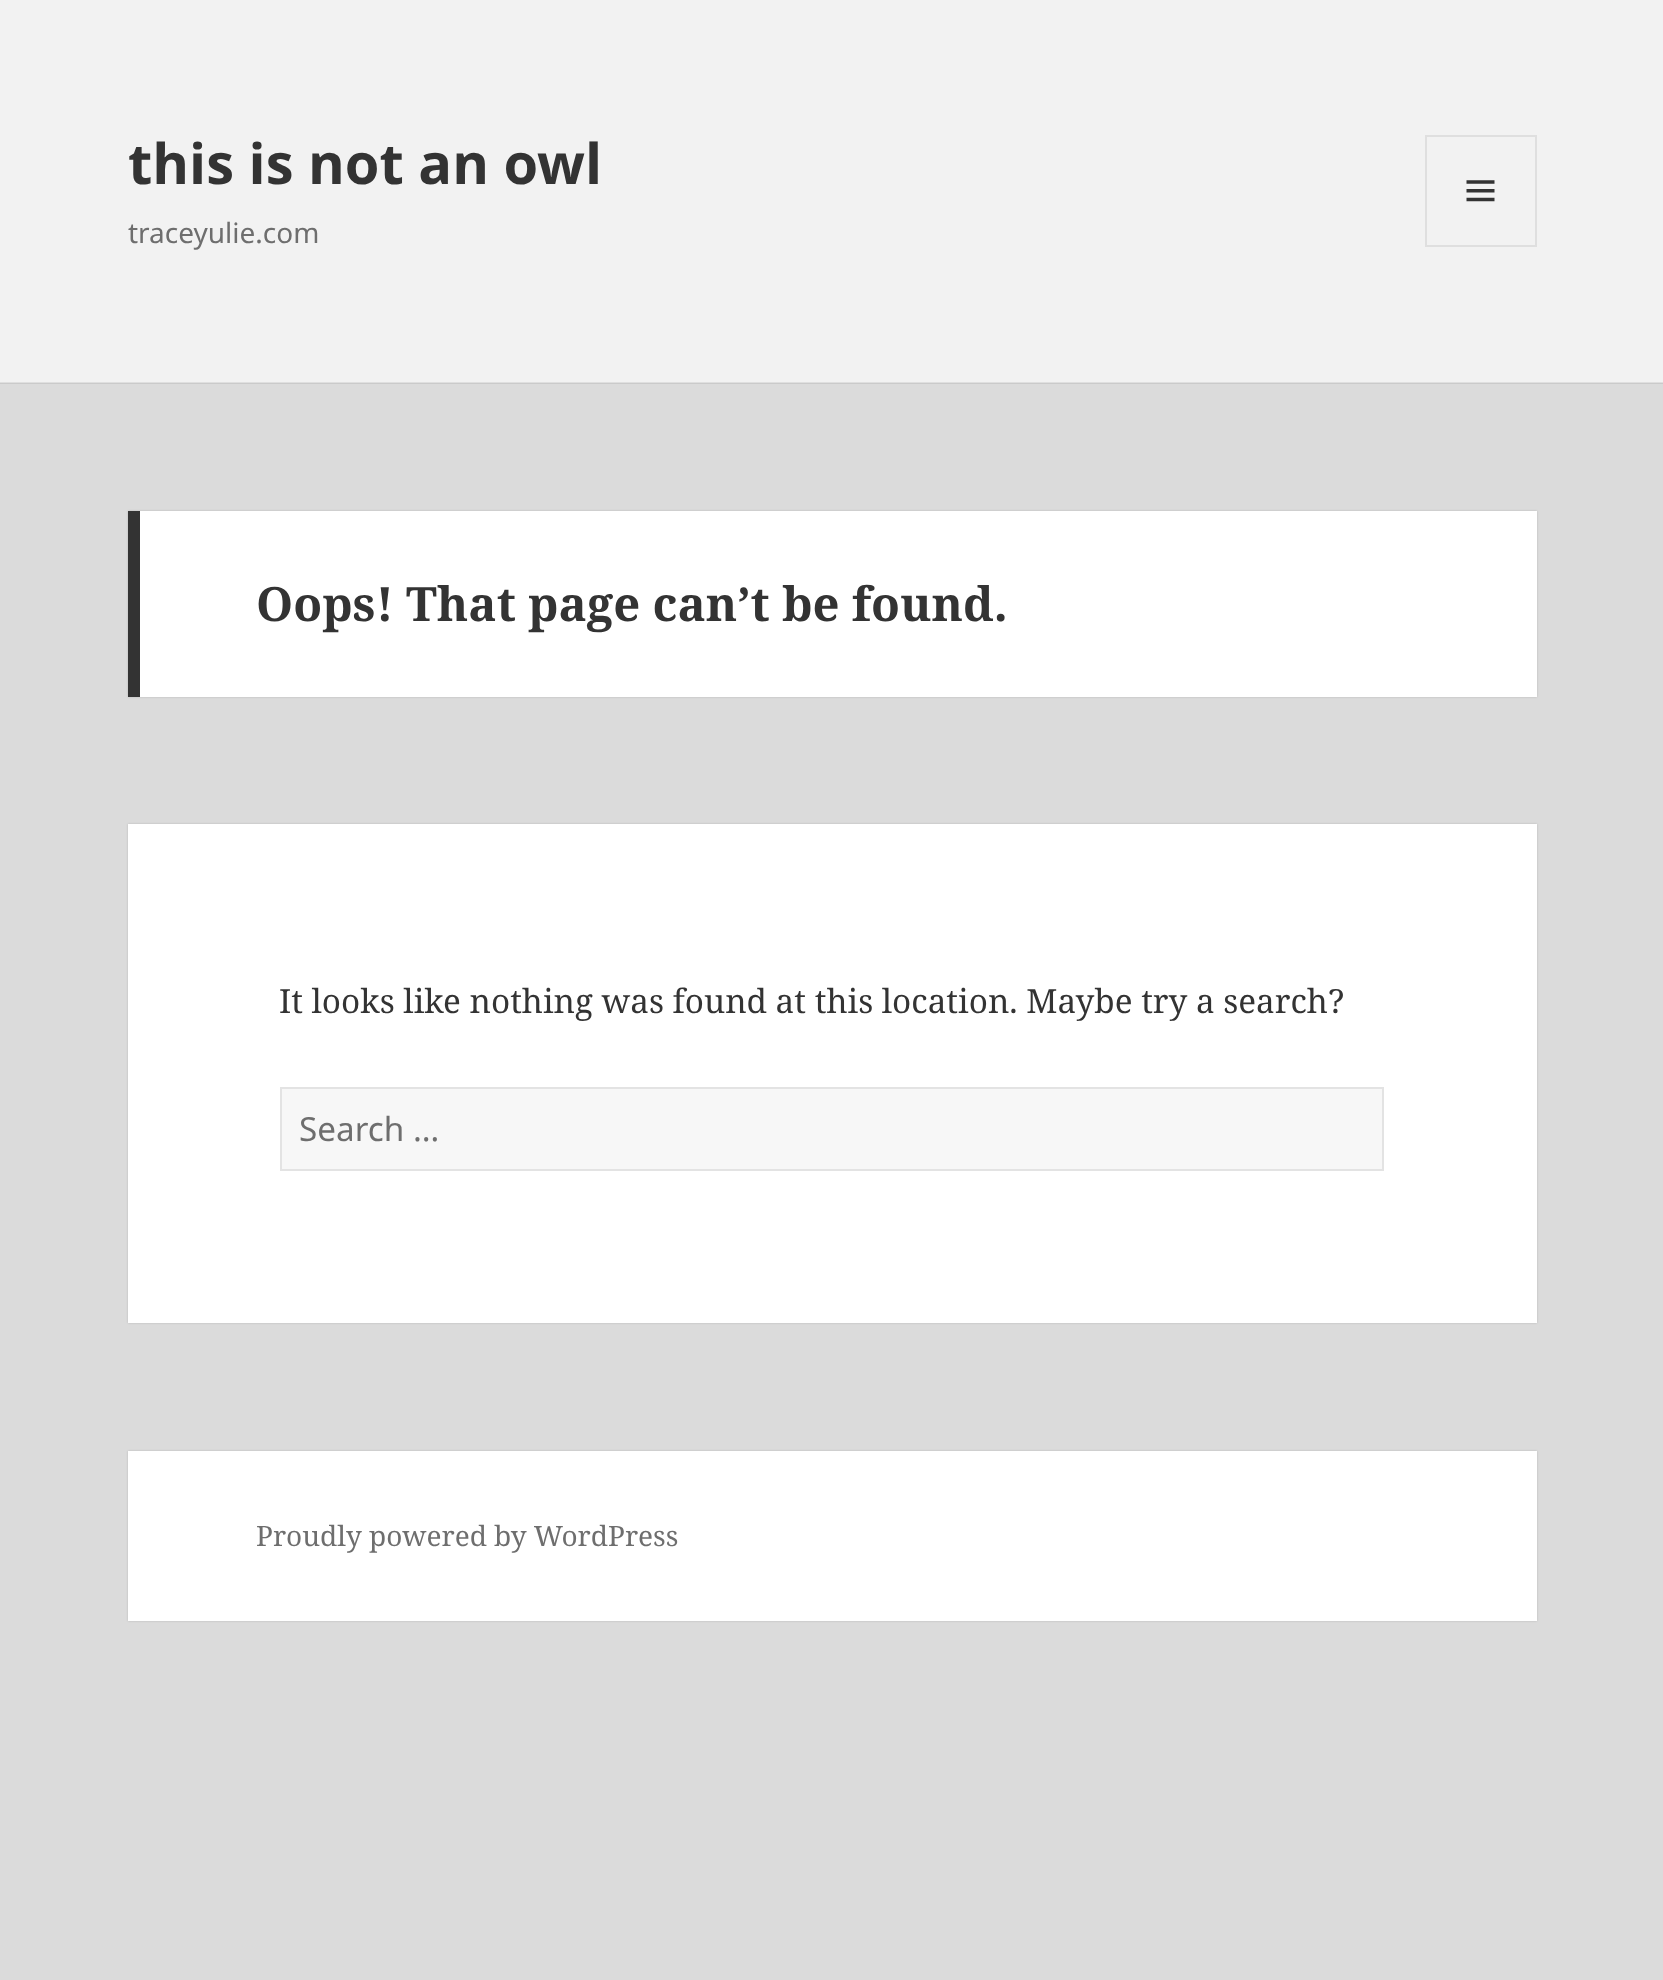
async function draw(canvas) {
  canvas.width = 1663
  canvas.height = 1980
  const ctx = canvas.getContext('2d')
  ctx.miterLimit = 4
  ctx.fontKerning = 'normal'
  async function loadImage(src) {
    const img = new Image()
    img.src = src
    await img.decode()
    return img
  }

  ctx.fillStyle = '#dbdbdb'
  ctx.fillRect(0, 0, 1663, 1980)
  ctx.fillStyle = '#cacaca'
  ctx.fillRect(0, 383, 1663, 1)
  ctx.fillStyle = '#f2f2f2'
  ctx.fillRect(0, 0, 1663, 382)
  ctx.fillStyle = '#dfdfdf'
  ctx.fillRect(0, 382, 1663, 1)
  ctx.font = 'bold 56px Noto Sans'
  ctx.fillStyle = '#333'
  ctx.fillText('this is not an owl', 128, 184)
  ctx.strokeStyle = '#dfdfdf'
  ctx.lineWidth = 2
  ctx.strokeRect(1426, 136, 110, 110)
  ctx.drawImage(await loadImage('image0.png'), 1466, 180, 29, 22)
  ctx.font = '28px Noto Sans'
  ctx.fillStyle = '#6e6e6e'
  ctx.fillText('traceyulie.com', 128, 243)
  ctx.fillStyle = '#00000026'
  ctx.filter = 'blur(1px)'
  ctx.beginPath()
  ctx.rect(128, 511, 1409, 186)
  ctx.fill()
  ctx.filter = 'none'
  ctx.fillStyle = '#fff'
  ctx.fillRect(140, 511, 1397, 186)
  ctx.fillStyle = '#333'
  ctx.fillRect(128, 511, 12, 186)
  ctx.font = 'bold 47.25px Noto Serif'
  ctx.fillText('Oops! That page can’t be found.', 256, 621)
  ctx.fillStyle = '#00000026'
  ctx.filter = 'blur(1px)'
  ctx.beginPath()
  ctx.rect(128, 824, 1409, 499)
  ctx.fill()
  ctx.filter = 'none'
  ctx.fillStyle = '#fff'
  ctx.fillRect(128, 824, 1409, 499)
  ctx.font = '33.25px Noto Serif'
  ctx.fillStyle = '#333'
  ctx.fillText('It looks like nothing was found at this location. Maybe try a search?', 279, 1013)
  ctx.fillStyle = '#f7f7f7'
  ctx.beginPath()
  ctx.rect(281, 1088, 1102, 82)
  ctx.fill()
  ctx.strokeStyle = '#e3e3e3'
  ctx.stroke()
  ctx.font = '33.25px Noto Sans'
  ctx.fillStyle = '#6e6e6e'
  ctx.fillText('Search …', 299, 1141)
  ctx.fillStyle = '#00000026'
  ctx.filter = 'blur(1px)'
  ctx.beginPath()
  ctx.rect(128, 1451, 1409, 170)
  ctx.fill()
  ctx.filter = 'none'
  ctx.fillStyle = '#fff'
  ctx.fillRect(128, 1451, 1409, 170)
  ctx.font = '28px Noto Serif'
  ctx.fillStyle = '#6e6e6e'
  ctx.fillText('Proudly powered by WordPress', 256, 1546)
}

draw(document.querySelector('canvas'))
